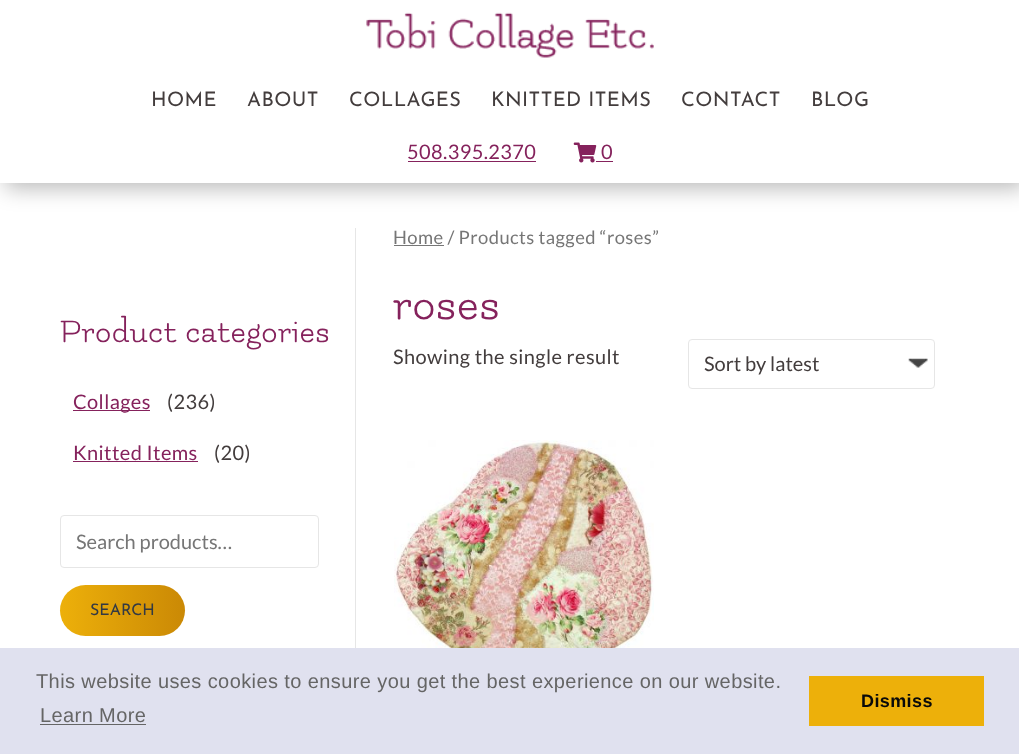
async function draw(canvas) {
  canvas.width = 1019
  canvas.height = 754
  const ctx = canvas.getContext('2d')
  ctx.miterLimit = 4
  ctx.fontKerning = 'normal'
  async function loadImage(src) {
    const img = new Image()
    img.src = src
    await img.decode()
    return img
  }
  let gradient

  ctx.fillStyle = '#fff'
  ctx.fillRect(0, 0, 1019, 754)
  ctx.save()
  ctx.beginPath()
  ctx.moveTo(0, 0)
  ctx.lineTo(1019, 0)
  ctx.lineTo(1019, 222)
  ctx.lineTo(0, 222)
  ctx.closePath()
  ctx.moveTo(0, 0)
  ctx.lineTo(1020, 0)
  ctx.lineTo(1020, 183)
  ctx.lineTo(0, 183)
  ctx.closePath()
  ctx.clip('evenodd')
  ctx.fillStyle = '#00000047'
  ctx.filter = 'blur(11px)'
  ctx.beginPath()
  ctx.rect(5, 5, 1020, 183)
  ctx.fill()
  ctx.filter = 'none'
  ctx.restore()
  ctx.drawImage(await loadImage('image0.png'), 366, 12, 288, 46)
  ctx.letterSpacing = '0.4px'
  ctx.font = '20px Josefin Sans'
  ctx.fillStyle = '#433d3d'
  ctx.fillText('HOME', 151, 106)
  ctx.fillText('ABOUT', 247, 106)
  ctx.fillText('COLLAGES', 349, 106)
  ctx.fillText('KNITTED ITEMS', 491, 106)
  ctx.fillText('CONTACT', 681, 106)
  ctx.fillText('BLOG', 811, 106)
  ctx.font = '20px Lato'
  ctx.fillStyle = '#85225c'
  ctx.fillText('508.395.2370', 407, 159)
  ctx.fillRect(408, 161, 128, 1)
  ctx.drawImage(await loadImage('image1.png'), 573, 142, 24, 21)
  ctx.fillText('0', 601, 159)
  ctx.fillRect(596, 161, 17, 1)
  ctx.fillStyle = '#e6e6e6'
  ctx.fillRect(355, 228, 1, 420)
  ctx.font = '35px Flamenco'
  ctx.fillStyle = '#85225c'
  ctx.fillText('Product categories', 60, 342)
  ctx.fillRect(73, 410, 77, 1)
  ctx.font = '20px Lato'
  ctx.fillText('Collages', 73, 409)
  ctx.fillStyle = '#433d3d'
  ctx.fillText('(236)', 167, 409)
  ctx.fillStyle = '#85225c'
  ctx.fillText('Knitted Items', 73, 460)
  ctx.fillRect(73, 461, 125, 1)
  ctx.fillStyle = '#433d3d'
  ctx.fillText('(20)', 214, 460)
  ctx.beginPath()
  ctx.roundRect(60.5, 515.5, 258, 52, 3.5)
  ctx.strokeStyle = '#e6e6e6'
  ctx.stroke()
  ctx.letterSpacing = '0px'
  ctx.fillStyle = '#767676'
  ctx.fillText('Search products…', 76, 549)
  gradient = ctx.createLinearGradient(60, 611, 310, 611)
  gradient.addColorStop(0, '#edb00a')
  gradient.addColorStop(1, '#a86200')
  ctx.fillStyle = gradient
  ctx.beginPath()
  ctx.roundRect(60, 585, 125, 51, 25.5)
  ctx.fill()
  ctx.font = '16px Josefin Sans'
  ctx.fillStyle = '#323944'
  ctx.fillText('SEARCH', 90, 615)
  ctx.fillStyle = '#767676'
  ctx.fillRect(394, 245, 50, 1)
  ctx.letterSpacing = '0.4px'
  ctx.font = '18.4px Lato'
  ctx.fillText('Home / Products tagged “roses”', 393, 244)
  ctx.font = '50px Flamenco'
  ctx.fillStyle = '#85225c'
  ctx.fillText('roses', 393, 319)
  ctx.font = '20px Lato'
  ctx.fillStyle = '#433d3d'
  ctx.fillText('Showing the single result', 393, 364)
  ctx.drawImage(await loadImage('image2.png'), 908, 358, 20, 10)
  ctx.beginPath()
  ctx.roundRect(688.5, 339.5, 246, 49, 3.5)
  ctx.stroke()
  ctx.letterSpacing = '0px'
  ctx.fillText('Sort by latest', 704, 371)
  ctx.drawImage(await loadImage('image3.png'), 394, 440, 260, 208)
  ctx.fillStyle = '#e0e1ef'
  ctx.fillRect(0, 648, 1019, 106)
  ctx.letterSpacing = '0.4px'
  ctx.font = '20px Liberation Sans'
  ctx.fillStyle = '#656565'
  ctx.fillText('This website uses cookies to ensure you get the best experience on our website.', 36, 688)
  ctx.fillText('Learn More', 40, 722)
  ctx.fillRect(40, 724, 106, 1)
  ctx.fillStyle = '#edb00a'
  ctx.fillRect(809, 676, 175, 50)
  ctx.font = 'bold 18px Liberation Sans'
  ctx.fillStyle = '#0a0a0a'
  ctx.fillText('Dismiss', 861, 707)
}

draw(document.querySelector('canvas'))
